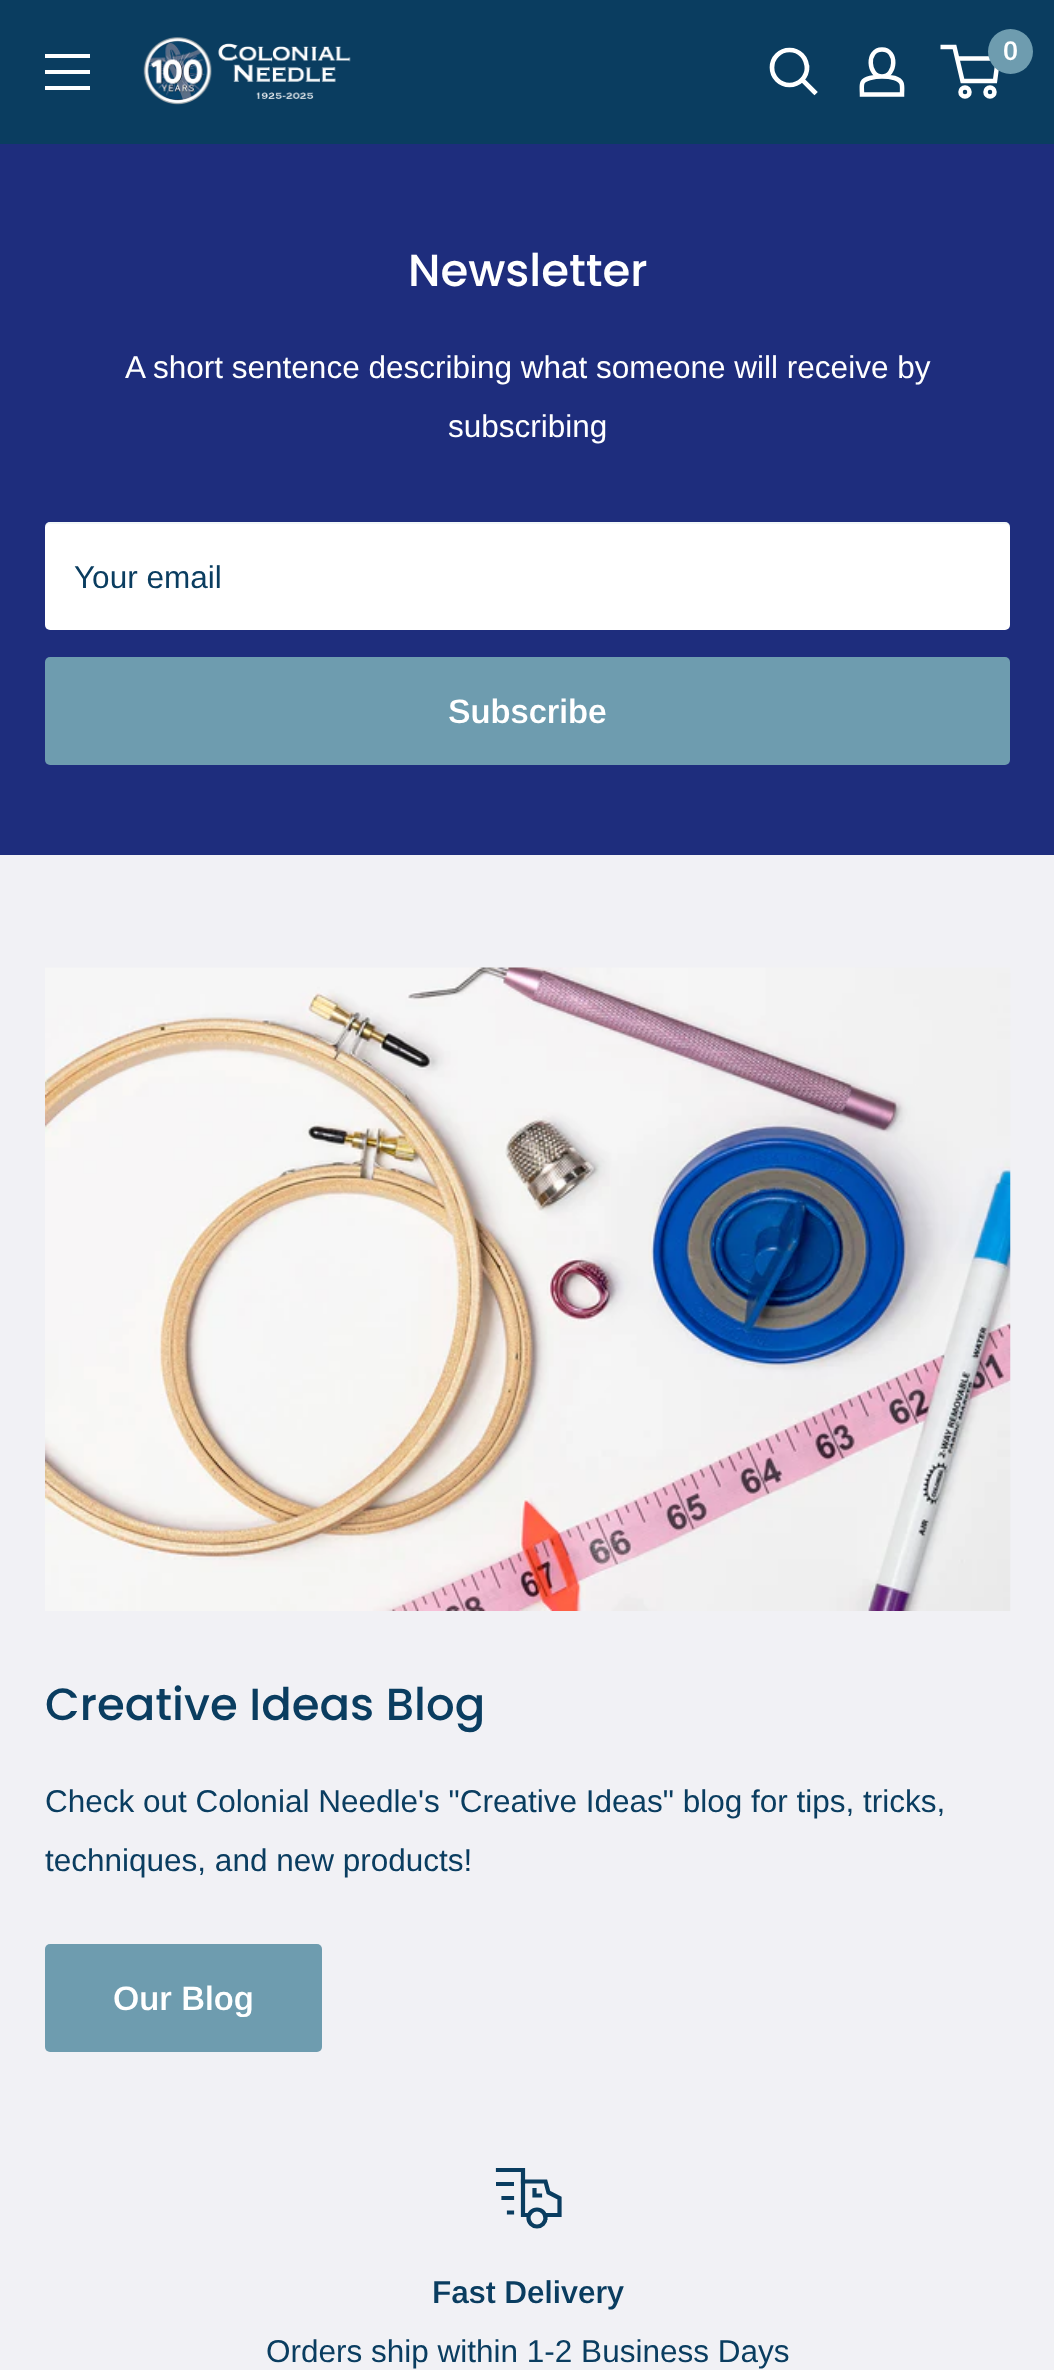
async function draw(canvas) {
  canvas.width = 1054
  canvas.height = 2370
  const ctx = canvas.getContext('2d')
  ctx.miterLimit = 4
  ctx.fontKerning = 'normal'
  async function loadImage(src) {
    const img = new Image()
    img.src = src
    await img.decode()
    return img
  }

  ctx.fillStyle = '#f1f1f5'
  ctx.fillRect(0, 0, 1054, 2370)
  ctx.fillStyle = '#0a3d60'
  ctx.fillRect(0, 0, 1054, 144)
  ctx.drawImage(await loadImage('image0.png'), 143, 37, 208, 68)
  ctx.beginPath()
  ctx.moveTo(814.5, 92)
  ctx.lineTo(802.5, 80)
  ctx.strokeStyle = '#fff'
  ctx.lineWidth = 4.7
  ctx.lineCap = 'square'
  ctx.stroke()
  ctx.beginPath()
  ctx.arc(789.5, 67.5, 17.5, 0, 2 * Math.PI)
  ctx.stroke()
  ctx.beginPath()
  ctx.moveTo(882, 76.5)
  ctx.bezierCurveTo(886, 76.5, 890.5, 77, 894.5, 78)
  ctx.bezierCurveTo(904, 81, 902, 86, 902, 94.5)
  ctx.lineTo(862, 94.5)
  ctx.bezierCurveTo(862, 85.5, 859.5, 80.5, 870, 78)
  ctx.bezierCurveTo(874, 77, 878, 76.5, 882, 76.5)
  ctx.closePath()
  ctx.moveTo(882, 76.5)
  ctx.bezierCurveTo(868, 76.5, 866, 49.5, 882, 49.5)
  ctx.bezierCurveTo(898, 49.5, 896, 76.5, 882, 76.5)
  ctx.closePath()
  ctx.lineWidth = 4.5
  ctx.lineCap = 'butt'
  ctx.stroke()
  ctx.beginPath()
  ctx.arc(965, 92, 4.5, 0, 2 * Math.PI)
  ctx.stroke()
  ctx.beginPath()
  ctx.arc(990, 92, 4.5, 0, 2 * Math.PI)
  ctx.stroke()
  ctx.beginPath()
  ctx.moveTo(957, 58.5)
  ctx.lineTo(998, 58.5)
  ctx.lineTo(995, 81)
  ctx.lineTo(962.5, 81)
  ctx.lineTo(954.5, 47)
  ctx.lineTo(940.5, 47)
  ctx.stroke()
  ctx.fillStyle = '#6e9caf'
  ctx.beginPath()
  ctx.arc(1010.5, 51.5, 22.5, 0, 2 * Math.PI)
  ctx.fill()
  ctx.font = '600 27px Arimo'
  ctx.fillStyle = '#fff'
  ctx.fillText('0', 1003, 60)
  ctx.beginPath()
  ctx.moveTo(45, 86)
  ctx.lineTo(90, 86)
  ctx.lineTo(90, 90)
  ctx.lineTo(45, 90)
  ctx.closePath()
  ctx.moveTo(45, 54)
  ctx.lineTo(90, 54)
  ctx.lineTo(90, 58)
  ctx.lineTo(45, 58)
  ctx.closePath()
  ctx.moveTo(45, 70)
  ctx.lineTo(90, 70)
  ctx.lineTo(90, 74)
  ctx.lineTo(45, 74)
  ctx.closePath()
  ctx.fill('evenodd')
  ctx.fillStyle = '#1e2d7d'
  ctx.fillRect(0, 144, 1054, 711)
  ctx.font = '500 45px Poppins'
  ctx.fillStyle = '#fff'
  ctx.fillText('Newsletter', 408, 286)
  ctx.font = '31.5px Arimo'
  ctx.fillText('A short sentence describing what someone will receive by', 125, 378)
  ctx.fillText('subscribing', 448, 437)
  ctx.beginPath()
  ctx.roundRect(45, 522, 965, 108, 5)
  ctx.fill()
  ctx.fillStyle = '#cae3e340'
  ctx.beginPath()
  ctx.moveTo(50, 524)
  ctx.lineTo(1006, 524)
  ctx.bezierCurveTo(1008, 524, 1010, 526, 1010, 529)
  ctx.lineTo(1010, 527)
  ctx.bezierCurveTo(1010, 524, 1008, 522, 1005, 522)
  ctx.lineTo(50, 522)
  ctx.bezierCurveTo(47, 522, 45, 524, 45, 527)
  ctx.lineTo(45, 529)
  ctx.bezierCurveTo(45, 526, 47, 524, 50, 524)
  ctx.closePath()
  ctx.fill()
  ctx.fillStyle = '#0a3d60'
  ctx.fillText('Your email', 74, 588)
  ctx.fillStyle = '#6e9caf'
  ctx.beginPath()
  ctx.roundRect(45, 657, 965, 108, 5)
  ctx.fill()
  ctx.font = '600 33.75px Arimo'
  ctx.fillStyle = '#fff'
  ctx.fillText('Subscribe', 448, 723)
  ctx.drawImage(await loadImage('image1.png'), 45, 967, 966, 644)
  ctx.font = '500 45px Poppins'
  ctx.fillStyle = '#0a3d60'
  ctx.fillText('Creative Ideas Blog', 45, 1720)
  ctx.font = '31.5px Arimo'
  ctx.fillText('Check out Colonial Needle\'s "Creative Ideas" blog for tips, tricks,', 45, 1812)
  ctx.fillText('techniques, and new products!', 45, 1871)
  ctx.fillStyle = '#6e9caf'
  ctx.beginPath()
  ctx.roundRect(45, 1944, 277, 108, 5)
  ctx.fill()
  ctx.font = '600 33.75px Arimo'
  ctx.fillStyle = '#fff'
  ctx.fillText('Our Blog', 113, 2010)
  ctx.fillStyle = '#0a3d60'
  ctx.fillRect(496, 2182, 18, 4)
  ctx.beginPath()
  ctx.moveTo(545, 2215)
  ctx.lineTo(559.5, 2215)
  ctx.lineTo(559.5, 2198)
  ctx.lineTo(548.5, 2192.5)
  ctx.lineTo(545.5, 2181.5)
  ctx.lineTo(523, 2181.5)
  ctx.lineTo(523, 2215)
  ctx.lineTo(529, 2215)
  ctx.strokeStyle = '#0a3d60'
  ctx.lineWidth = 4.2
  ctx.stroke()
  ctx.beginPath()
  ctx.moveTo(498, 2170)
  ctx.lineTo(523, 2170)
  ctx.lineTo(523, 2181.5)
  ctx.lineCap = 'square'
  ctx.stroke()
  ctx.beginPath()
  ctx.moveTo(534.5, 2190)
  ctx.lineTo(534.5, 2195.5)
  ctx.lineTo(540, 2195.5)
  ctx.stroke()
  ctx.beginPath()
  ctx.moveTo(512, 2198)
  ctx.lineTo(503.5, 2198)
  ctx.moveTo(512, 2212.5)
  ctx.lineTo(509, 2212.5)
  ctx.stroke()
  ctx.beginPath()
  ctx.arc(537, 2218, 8.5, 0, 2 * Math.PI)
  ctx.stroke()
  ctx.font = '600 31.5px Arimo'
  ctx.fillText('Fast Delivery', 432, 2303)
  ctx.font = '31.5px Arimo'
  ctx.fillText('Orders ship within 1-2 Business Days', 266, 2362)
}

draw(document.querySelector('canvas'))
